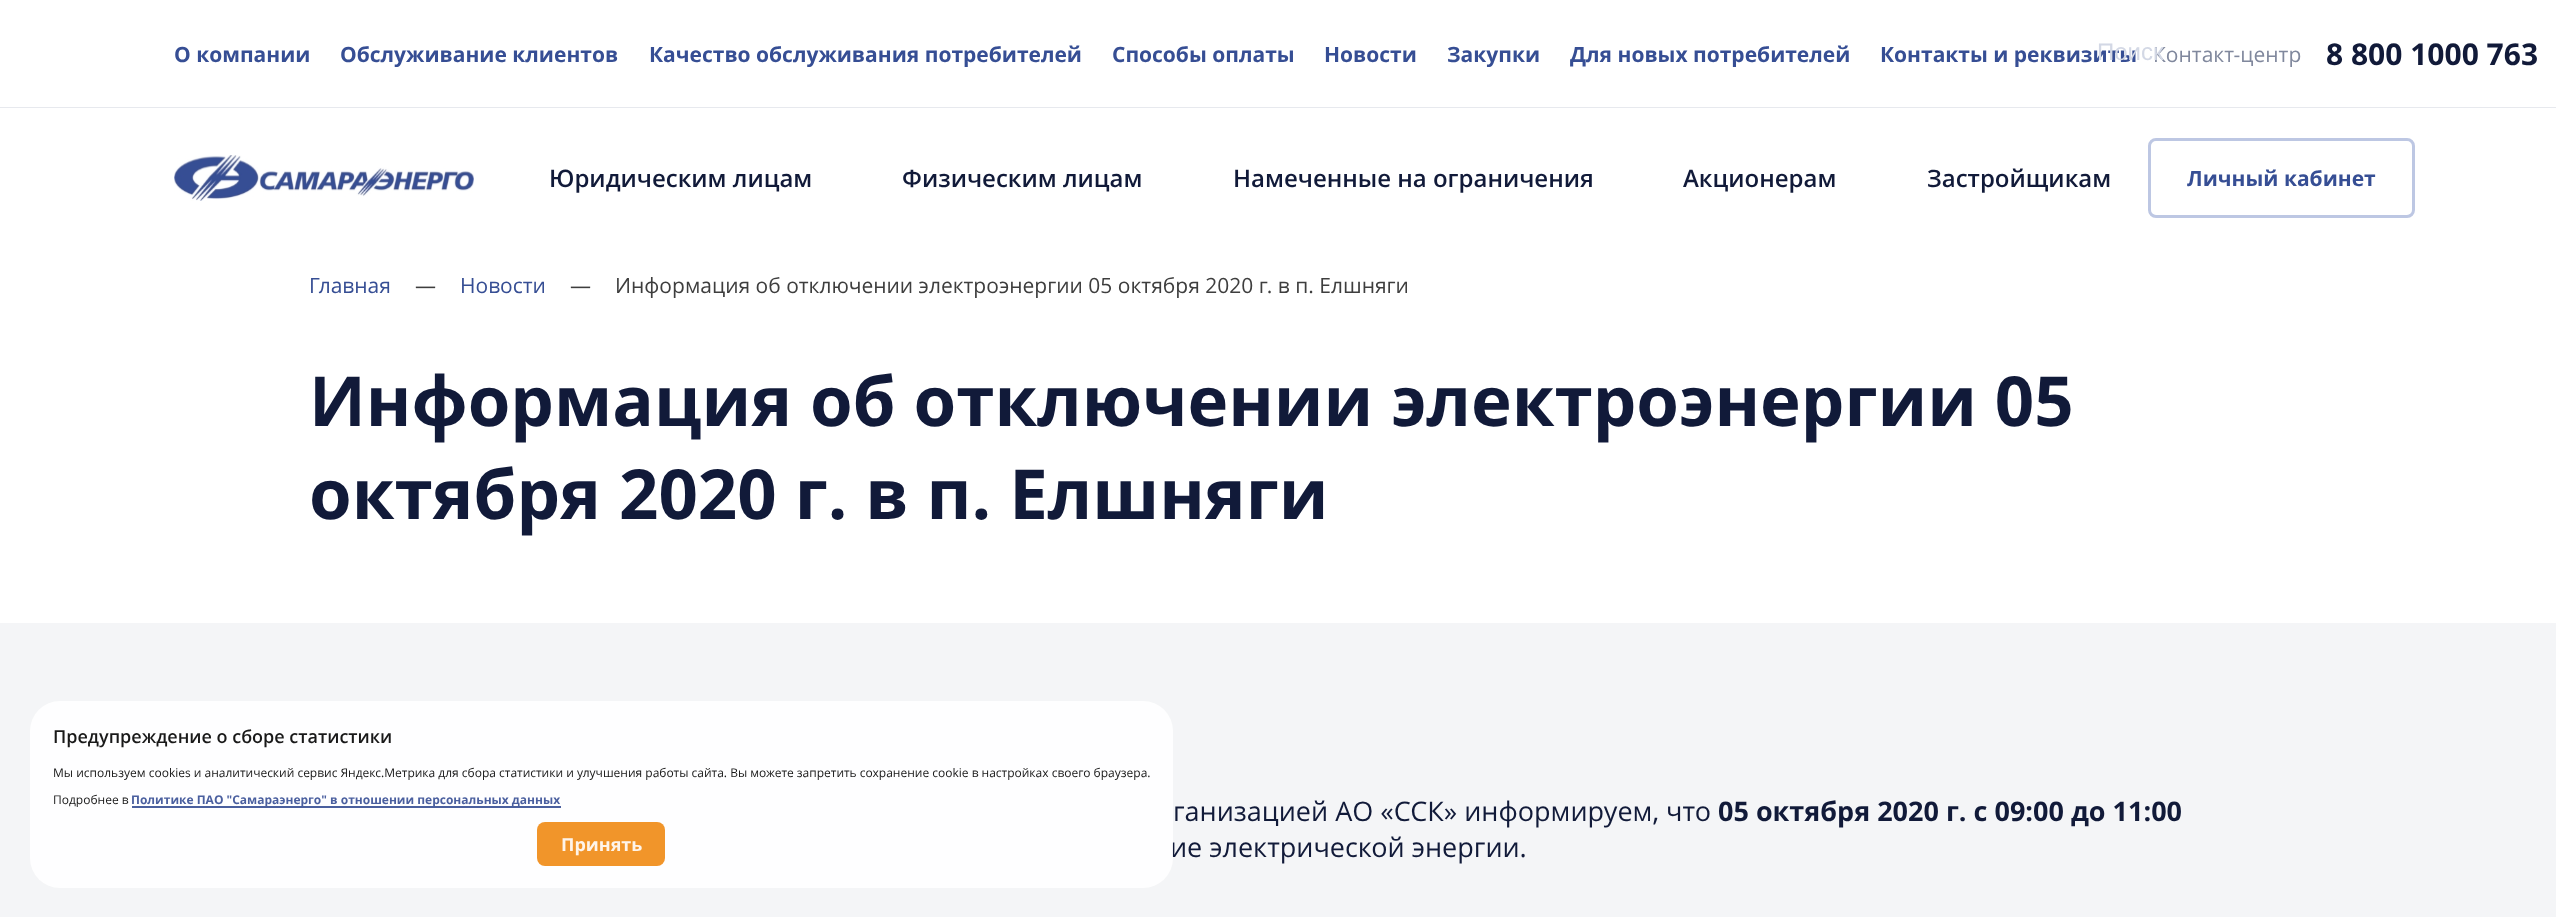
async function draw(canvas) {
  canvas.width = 2556
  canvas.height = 917
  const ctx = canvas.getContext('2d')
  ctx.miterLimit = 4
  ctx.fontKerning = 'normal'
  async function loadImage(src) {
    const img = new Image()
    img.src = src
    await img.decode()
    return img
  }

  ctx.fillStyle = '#f4f5f7'
  ctx.fillRect(0, 0, 2556, 917)
  ctx.fillStyle = '#fff'
  ctx.fillRect(0, 0, 2556, 623)
  ctx.fillStyle = '#e7e9ee'
  ctx.fillRect(0, 107, 2556, 1)
  ctx.font = 'bold 21px Open Sans'
  ctx.fillStyle = '#364e94'
  ctx.fillText('О компании', 174, 62)
  ctx.fillText('Обслуживание клиентов', 340, 62)
  ctx.fillText('Качество обслуживания потребителей', 649, 62)
  ctx.fillText('Способы оплаты', 1112, 62)
  ctx.fillText('Новости', 1324, 62)
  ctx.fillText('Закупки', 1447, 62)
  ctx.fillText('Для новых потребителей', 1570, 62)
  ctx.fillText('Контакты и реквизиты', 1880, 62)
  ctx.font = '21px Open Sans'
  ctx.fillStyle = '#80889d'
  ctx.fillText('Контакт-центр', 2153, 62)
  ctx.font = '24px Liberation Sans'
  ctx.fillStyle = '#d3d8e5'
  ctx.fillText('Поиск', 2097, 60)
  ctx.font = 'bold 30px Open Sans'
  ctx.fillStyle = '#111a39'
  ctx.fillText('8 800 1000 763', 2326, 65)
  ctx.drawImage(await loadImage('image0.png'), 174, 155, 300, 46)
  ctx.font = '600 24px Open Sans'
  ctx.fillText('Юридическим лицам', 549, 187)
  ctx.fillText('Физическим лицам', 902, 187)
  ctx.fillText('Намеченные на ограничения', 1233, 187)
  ctx.fillText('Акционерам', 1683, 187)
  ctx.fillText('Застройщикам', 1927, 187)
  ctx.beginPath()
  ctx.roundRect(2149.5, 139.5, 264, 77, 6.5)
  ctx.strokeStyle = '#bdc7e3'
  ctx.lineWidth = 3
  ctx.stroke()
  ctx.font = 'bold 21px Open Sans'
  ctx.fillStyle = '#364e94'
  ctx.fillText('Личный кабинет', 2187, 186)
  ctx.font = '21px Open Sans'
  ctx.fillText('Главная', 309, 293)
  ctx.fillStyle = '#3e3e3e'
  ctx.fillText('—', 415, 293)
  ctx.fillStyle = '#364e94'
  ctx.fillText('Новости', 460, 293)
  ctx.fillStyle = '#3e3e3e'
  ctx.fillText('—', 570, 293)
  ctx.fillText('Информация об отключении электроэнергии 05 октября 2020 г. в п. Елшняги', 615, 293)
  ctx.font = 'bold 69px Open Sans'
  ctx.fillStyle = '#111a39'
  ctx.fillText('Информация об отключении электроэнергии 05', 309, 426)
  ctx.fillText('октября 2020 г. в п. Елшняги', 309, 519)
  ctx.font = '27px Open Sans'
  ctx.fillText('ие электрической энергии.', 1170, 857)
  ctx.fillStyle = '#ffffffe6'
  ctx.beginPath()
  ctx.roundRect(30, 701, 1143, 187, 30)
  ctx.fill()
  ctx.font = '600 18px Open Sans'
  ctx.fillStyle = '#191919'
  ctx.fillText('Предупреждение о сборе статистики', 53, 743)
  ctx.font = '12px Open Sans'
  ctx.fillText('Мы используем cookies и аналитический сервис Яндекс.Метрика для сбора статистики и улучшения работы сайта. Вы можете запретить сохранение cookie в настройках своего браузера.', 53, 777)
  ctx.fillText('Подробнее в', 53, 804)
  ctx.fillStyle = '#364e94e6'
  ctx.fillRect(132, 806, 429, 2)
  ctx.font = 'bold 12px Open Sans'
  ctx.fillStyle = '#4a5f9f'
  ctx.fillText('Политике ПАО "Самараэнерго" в отношении персональных данных', 131, 804)
  ctx.fillStyle = '#f08a13e6'
  ctx.beginPath()
  ctx.roundRect(537, 822, 128, 44, 8)
  ctx.fill()
  ctx.font = 'bold 18px Open Sans'
  ctx.fillStyle = '#fef4ea'
  ctx.fillText('Принять', 561, 851)
  ctx.font = '27px Open Sans'
  ctx.fillStyle = '#111a39'
  ctx.fillText('ганизацией АО «ССК» информируем, что', 1173, 821)
  ctx.font = 'bold 27px Open Sans'
  ctx.fillText('05 октября 2020 г. с 09:00 до 11:00', 1718, 821)
}

draw(document.querySelector('canvas'))
